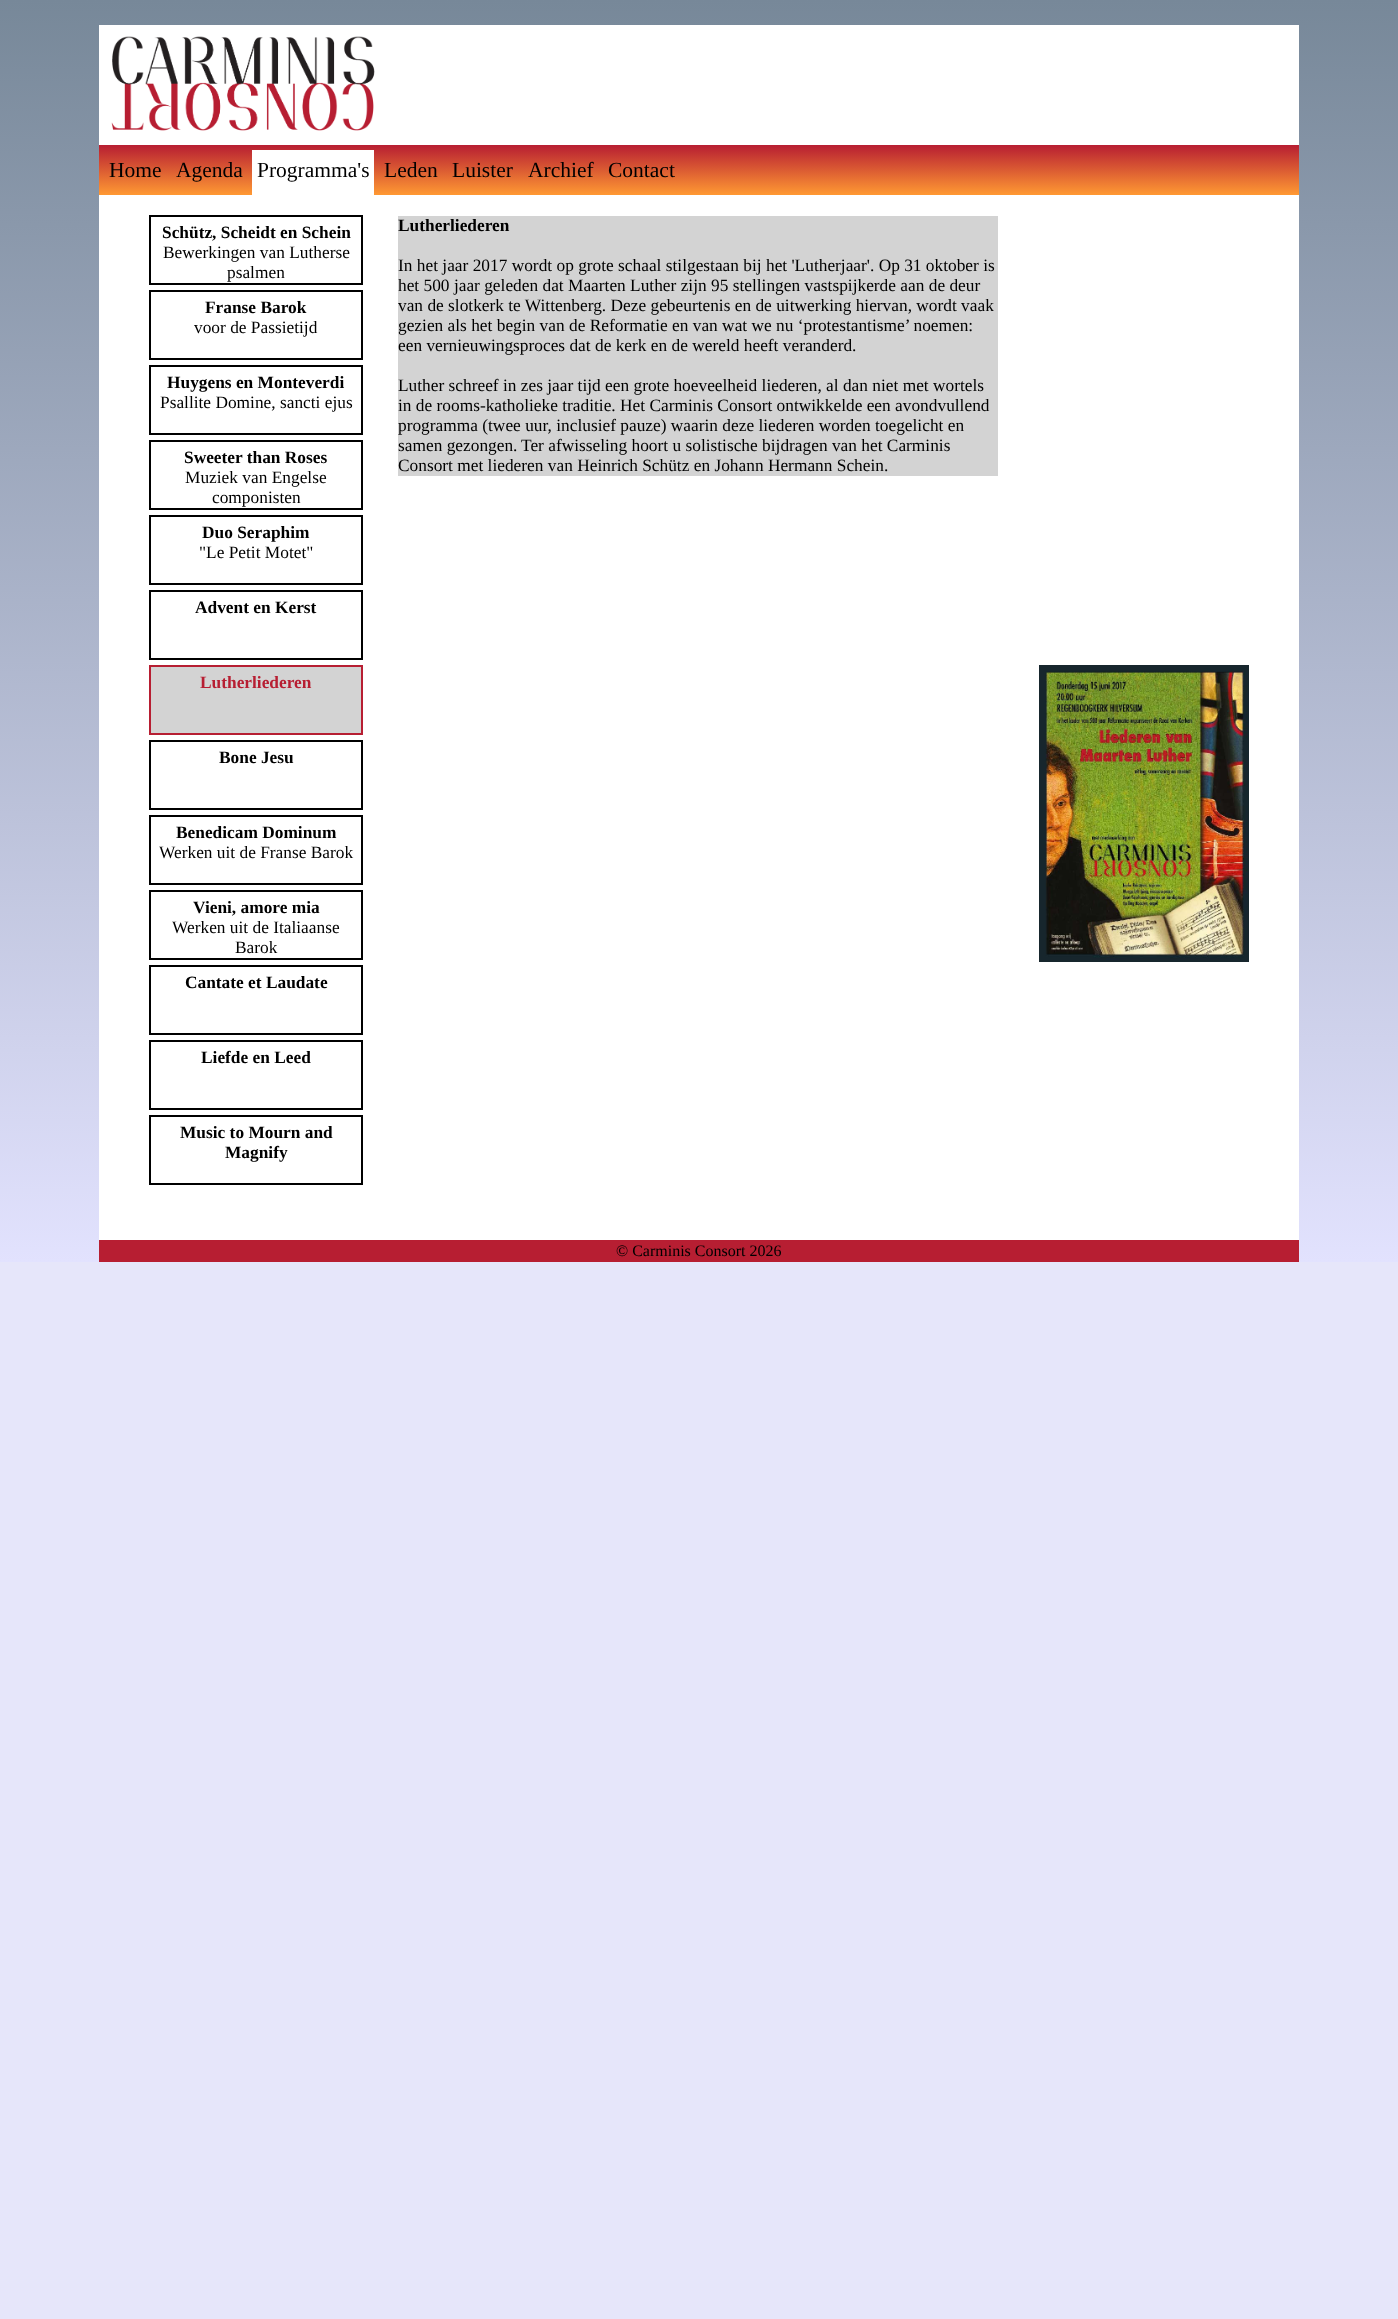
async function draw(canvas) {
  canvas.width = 1398
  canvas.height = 2319
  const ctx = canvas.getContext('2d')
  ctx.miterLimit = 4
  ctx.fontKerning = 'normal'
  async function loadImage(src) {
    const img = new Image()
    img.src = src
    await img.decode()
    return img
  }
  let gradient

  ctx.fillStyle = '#e6e6fa'
  ctx.fillRect(0, 0, 1398, 2319)
  gradient = ctx.createLinearGradient(699, 0, 699, 1262)
  gradient.addColorStop(0, '#789')
  gradient.addColorStop(1, '#e2e2fe')
  ctx.fillStyle = gradient
  ctx.fillRect(0, 0, 1398, 1262)
  ctx.fillStyle = '#fff'
  ctx.fillRect(99, 25, 1200, 120)
  ctx.drawImage(await loadImage('image0.png'), 111, 36, 264, 95)
  gradient = ctx.createLinearGradient(699, 145, 699, 195)
  gradient.addColorStop(0, '#b71e32')
  gradient.addColorStop(1, '#f93')
  ctx.fillStyle = gradient
  ctx.fillRect(99, 145, 1200, 50)
  ctx.font = '21.5px Liberation Serif'
  ctx.fillStyle = '#000'
  ctx.fillText('Home', 109, 177)
  ctx.fillText('Agenda', 176, 177)
  ctx.fillStyle = '#fff'
  ctx.fillRect(252, 150, 122, 45)
  ctx.fillStyle = '#000'
  ctx.fillText('Programma\'s', 257, 177)
  ctx.fillText('Leden', 384, 177)
  ctx.fillText('Luister', 452, 177)
  ctx.fillText('Archief', 528, 177)
  ctx.fillText('Contact', 608, 177)
  ctx.fillStyle = '#fff'
  ctx.fillRect(99, 195, 1200, 1045)
  ctx.strokeStyle = '#000'
  ctx.lineWidth = 2
  ctx.strokeRect(150, 216, 212, 68)
  ctx.font = 'bold 17.35px Liberation Serif'
  ctx.fillStyle = '#000'
  ctx.fillText('Schütz, Scheidt en Schein', 162, 238)
  ctx.font = '17.35px Liberation Serif'
  ctx.fillText('Bewerkingen van Lutherse', 163, 258)
  ctx.fillText('psalmen', 227, 278)
  ctx.strokeRect(150, 291, 212, 68)
  ctx.font = 'bold 17.35px Liberation Serif'
  ctx.fillText('Franse Barok', 205, 313)
  ctx.font = '17.35px Liberation Serif'
  ctx.fillText('voor de Passietijd', 194, 333)
  ctx.strokeRect(150, 366, 212, 68)
  ctx.font = 'bold 17.35px Liberation Serif'
  ctx.fillText('Huygens en Monteverdi', 167, 388)
  ctx.font = '17.35px Liberation Serif'
  ctx.fillText('Psallite Domine, sancti ejus', 160, 408)
  ctx.strokeRect(150, 441, 212, 68)
  ctx.font = 'bold 17.35px Liberation Serif'
  ctx.fillText('Sweeter than Roses', 184, 463)
  ctx.font = '17.35px Liberation Serif'
  ctx.fillText('Muziek van Engelse', 185, 483)
  ctx.fillText('componisten', 212, 503)
  ctx.strokeRect(150, 516, 212, 68)
  ctx.font = 'bold 17.35px Liberation Serif'
  ctx.fillText('Duo Seraphim', 202, 538)
  ctx.font = '17.35px Liberation Serif'
  ctx.fillText('"Le Petit Motet"', 199, 558)
  ctx.strokeRect(150, 591, 212, 68)
  ctx.font = 'bold 17.35px Liberation Serif'
  ctx.fillText('Advent en Kerst', 195, 613)
  ctx.fillStyle = '#d3d3d3'
  ctx.beginPath()
  ctx.rect(150, 666, 212, 68)
  ctx.fill()
  ctx.strokeStyle = '#b71e32'
  ctx.stroke()
  ctx.fillStyle = '#b71e32'
  ctx.fillText('Lutherliederen', 200, 688)
  ctx.strokeStyle = '#000'
  ctx.strokeRect(150, 741, 212, 68)
  ctx.fillStyle = '#000'
  ctx.fillText('Bone Jesu', 219, 763)
  ctx.strokeRect(150, 816, 212, 68)
  ctx.fillText('Benedicam Dominum', 176, 838)
  ctx.font = '17.35px Liberation Serif'
  ctx.fillText('Werken uit de Franse Barok', 159, 858)
  ctx.strokeRect(150, 891, 212, 68)
  ctx.font = 'bold 17.35px Liberation Serif'
  ctx.fillText('Vieni, amore mia', 193, 913)
  ctx.font = '17.35px Liberation Serif'
  ctx.fillText('Werken uit de Italiaanse', 172, 933)
  ctx.fillText('Barok', 235, 953)
  ctx.strokeRect(150, 966, 212, 68)
  ctx.font = 'bold 17.35px Liberation Serif'
  ctx.fillText('Cantate et Laudate', 185, 988)
  ctx.strokeRect(150, 1041, 212, 68)
  ctx.fillText('Liefde en Leed', 201, 1063)
  ctx.strokeRect(150, 1116, 212, 68)
  ctx.fillText('Music to Mourn and', 180, 1138)
  ctx.fillText('Magnify', 225, 1158)
  ctx.fillStyle = '#d3d3d3'
  ctx.fillRect(398, 216, 600, 260)
  ctx.fillStyle = '#000'
  ctx.fillText('Lutherliederen', 398, 231)
  ctx.font = '17.35px Liberation Serif'
  ctx.fillText('In het jaar 2017 wordt op grote schaal stilgestaan bij het \'Lutherjaar\'. Op 31 oktober is', 398, 271)
  ctx.fillText('het 500 jaar geleden dat Maarten Luther zijn 95 stellingen vastspijkerde aan de deur', 398, 291)
  ctx.fillText('van de slotkerk te Wittenberg. Deze gebeurtenis en de uitwerking hiervan, wordt vaak', 398, 311)
  ctx.fillText('gezien als het begin van de Reformatie en van wat we nu ‘protestantisme’ noemen:', 398, 331)
  ctx.fillText('een vernieuwingsproces dat de kerk en de wereld heeft veranderd.', 398, 351)
  ctx.fillText('Luther schreef in zes jaar tijd een grote hoeveelheid liederen, al dan niet met wortels', 398, 391)
  ctx.fillText('in de rooms-katholieke traditie. Het Carminis Consort ontwikkelde een avondvullend', 398, 411)
  ctx.fillText('programma (twee uur, inclusief pauze) waarin deze liederen worden toegelicht en', 398, 431)
  ctx.fillText('samen gezongen.', 398, 451)
  ctx.fillText('Ter afwisseling hoort u solistische bijdragen van het Carminis', 521, 451)
  ctx.fillText('Consort met liederen van Heinrich Schütz en Johann Hermann Schein.', 398, 471)
  ctx.drawImage(await loadImage('image1.png'), 1039, 665, 210, 297)
  ctx.fillStyle = '#b71e32'
  ctx.fillRect(99, 1240, 1200, 22)
  ctx.font = '16px Liberation Serif'
  ctx.fillStyle = '#000'
  ctx.fillText('© Carminis Consort 2026', 616, 1256)
}

draw(document.querySelector('canvas'))
